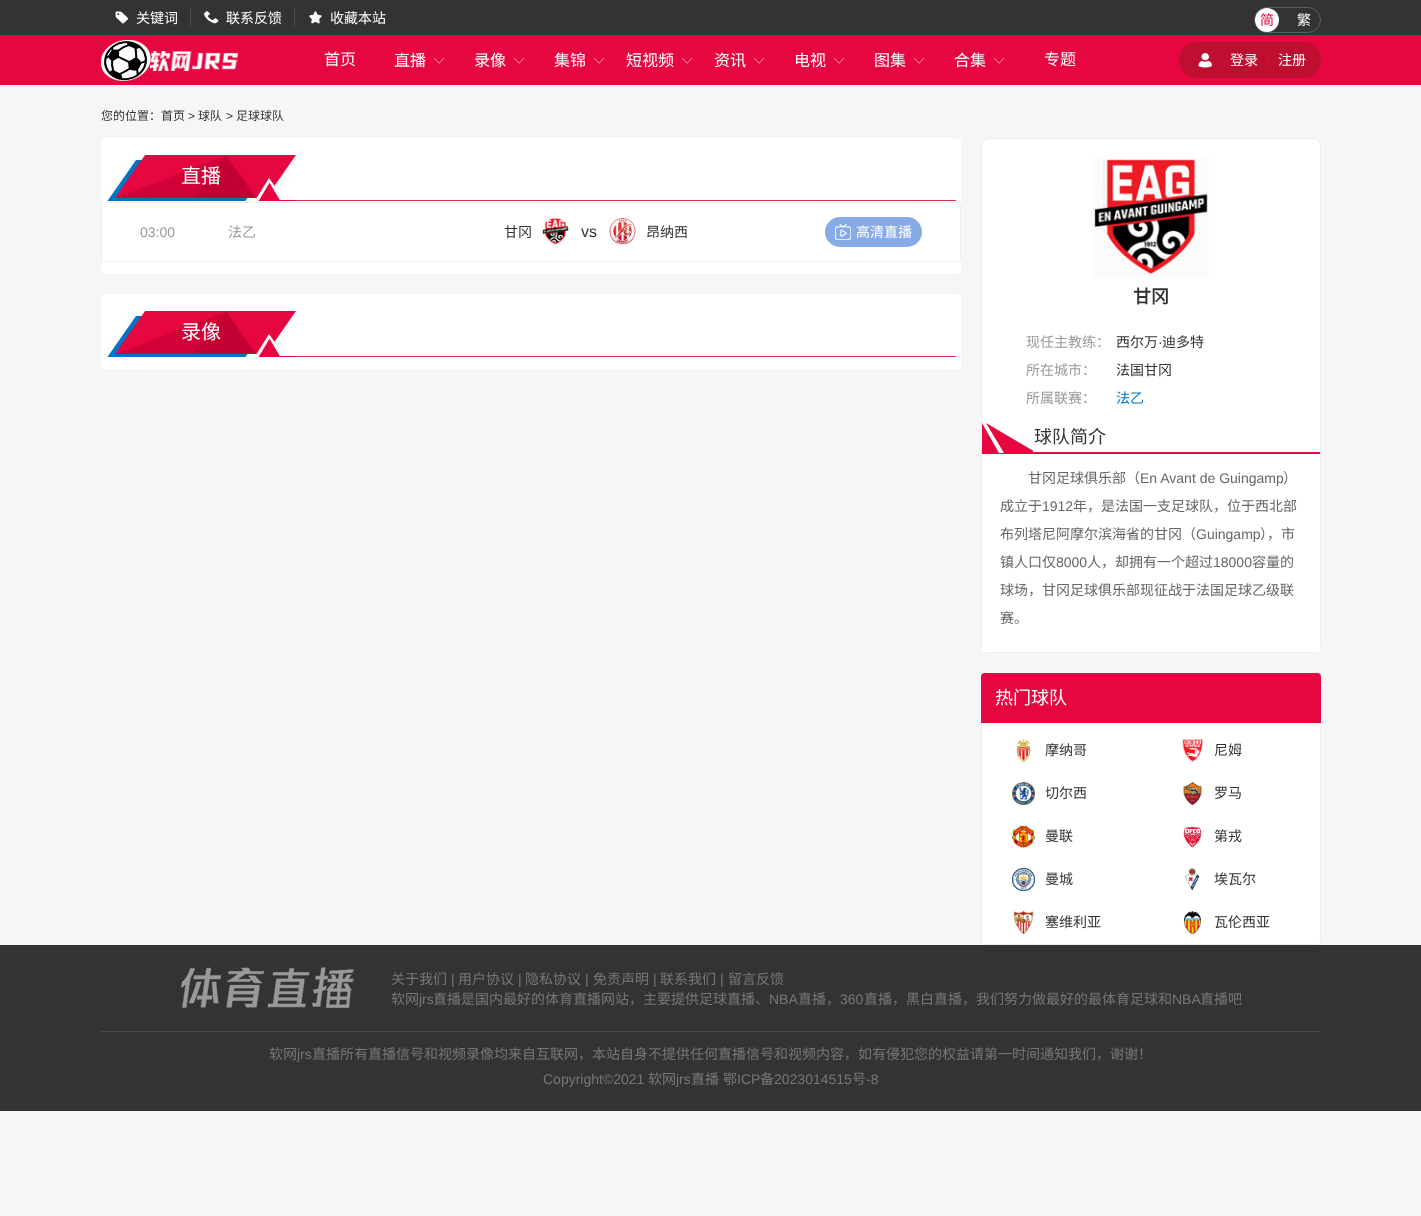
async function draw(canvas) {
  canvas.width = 1421
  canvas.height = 1216
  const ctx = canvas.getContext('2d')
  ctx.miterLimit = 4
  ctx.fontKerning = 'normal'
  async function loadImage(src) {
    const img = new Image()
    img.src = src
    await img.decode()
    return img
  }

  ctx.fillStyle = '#f6f6f6'
  ctx.fillRect(0, 0, 1421, 1216)
  ctx.fillStyle = '#333'
  ctx.fillRect(0, 0, 1421, 35)
  ctx.fillStyle = '#4d4d4d'
  ctx.fillRect(190, 7, 1, 20)
  ctx.drawImage(await loadImage('image0.png'), 115, 11, 14, 13)
  ctx.font = '14px Noto Sans CJK SC'
  ctx.fillStyle = '#fff'
  ctx.fillText('关键词', 136, 23)
  ctx.fillStyle = '#4d4d4d'
  ctx.fillRect(294, 7, 1, 20)
  ctx.drawImage(await loadImage('image1.png'), 204, 11, 15, 13)
  ctx.fillStyle = '#fff'
  ctx.fillText('联系反馈', 226, 23)
  ctx.drawImage(await loadImage('image2.png'), 309, 11, 13, 13)
  ctx.fillText('收藏本站', 330, 23)
  ctx.beginPath()
  ctx.roundRect(1254.5, 7.5, 66, 25, 12.5)
  ctx.strokeStyle = '#5d5d5d'
  ctx.stroke()
  ctx.beginPath()
  ctx.arc(1267, 20, 12, 0, 2 * Math.PI)
  ctx.fill()
  ctx.fillStyle = '#e60640'
  ctx.fillText('简', 1260, 25)
  ctx.fillStyle = '#fff'
  ctx.fillText('繁', 1297, 25)
  ctx.fillStyle = '#e60640'
  ctx.fillRect(0, 35, 1421, 50)
  ctx.drawImage(await loadImage('image3.png'), 101, 40, 137, 41)
  ctx.font = '16px Noto Sans CJK SC'
  ctx.fillStyle = '#fff'
  ctx.fillText('首页', 324, 65)
  ctx.fillText('直播', 394, 66)
  ctx.drawImage(await loadImage('image4.png'), 434, 57, 11, 7)
  ctx.fillText('录像', 474, 66)
  ctx.drawImage(await loadImage('image4.png'), 514, 57, 11, 7)
  ctx.fillText('集锦', 554, 66)
  ctx.drawImage(await loadImage('image4.png'), 594, 57, 11, 7)
  ctx.fillText('短视频', 626, 66)
  ctx.drawImage(await loadImage('image4.png'), 682, 57, 11, 7)
  ctx.fillText('资讯', 714, 66)
  ctx.drawImage(await loadImage('image4.png'), 754, 57, 11, 7)
  ctx.fillText('电视', 794, 66)
  ctx.drawImage(await loadImage('image4.png'), 834, 57, 11, 7)
  ctx.fillText('图集', 874, 66)
  ctx.drawImage(await loadImage('image4.png'), 914, 57, 11, 7)
  ctx.fillText('合集', 954, 66)
  ctx.drawImage(await loadImage('image4.png'), 994, 57, 11, 7)
  ctx.fillText('专题', 1044, 65)
  ctx.fillStyle = '#bf0f30'
  ctx.beginPath()
  ctx.roundRect(1179, 42, 142, 36, 18)
  ctx.fill()
  ctx.drawImage(await loadImage('image5.png'), 1198, 53, 14, 15)
  ctx.font = '14px Noto Sans CJK SC'
  ctx.fillStyle = '#fff'
  ctx.fillText('登录', 1230, 65)
  ctx.fillStyle = '#d41135'
  ctx.fillRect(1268, 52, 1, 16)
  ctx.fillStyle = '#fff'
  ctx.fillText('注册', 1278, 65)
  ctx.font = '12px Noto Sans CJK SC'
  ctx.fillStyle = '#333'
  ctx.fillText('您的位置：首页', 101, 120)
  ctx.font = '12px Liberation Sans'
  ctx.fillText('>', 188, 120)
  ctx.font = '12px Noto Sans CJK SC'
  ctx.fillText('球队', 198, 120)
  ctx.font = '12px Liberation Sans'
  ctx.fillText('>', 226, 120)
  ctx.font = '12px Noto Sans CJK SC'
  ctx.fillText('足球球队', 236, 120)
  ctx.fillStyle = '#fff'
  ctx.beginPath()
  ctx.roundRect(101, 138, 860, 136, 4)
  ctx.fill()
  ctx.fillStyle = '#d33556'
  ctx.fillRect(296, 200, 660, 1)
  ctx.drawImage(await loadImage('image6.png'), 106, 155, 190, 46)
  ctx.font = '20px Noto Sans CJK SC'
  ctx.fillStyle = '#fff'
  ctx.fillText('直播', 181, 183)
  ctx.fillStyle = '#eee'
  ctx.fillRect(101, 202, 860, 1)
  ctx.fillRect(960, 202, 1, 60)
  ctx.fillRect(101, 202, 1, 60)
  ctx.fillRect(102, 261, 858, 1)
  ctx.font = '14px Liberation Sans'
  ctx.fillStyle = '#999'
  ctx.fillText('03:00', 140, 237)
  ctx.font = '14px Noto Sans CJK SC'
  ctx.fillText('法乙', 228, 237)
  ctx.fillStyle = '#333'
  ctx.fillText('甘冈', 504, 237)
  ctx.drawImage(await loadImage('image7.png'), 542, 218, 27, 27)
  ctx.font = '16px Liberation Sans'
  ctx.fillText('vs', 581, 237)
  ctx.drawImage(await loadImage('image8.png'), 609, 218, 27, 27)
  ctx.font = '14px Noto Sans CJK SC'
  ctx.fillText('昂纳西', 646, 237)
  ctx.fillStyle = '#87abe6'
  ctx.beginPath()
  ctx.roundRect(825, 217, 97, 30, 15)
  ctx.fill()
  ctx.drawImage(await loadImage('image9.png'), 835, 224, 16, 16)
  ctx.fillStyle = '#fff'
  ctx.fillText('高清直播', 856, 237)
  ctx.beginPath()
  ctx.roundRect(101, 294, 860, 75, 4)
  ctx.fill()
  ctx.fillStyle = '#d33556'
  ctx.fillRect(296, 356, 660, 1)
  ctx.drawImage(await loadImage('image6.png'), 106, 311, 190, 46)
  ctx.font = '20px Noto Sans CJK SC'
  ctx.fillStyle = '#fff'
  ctx.fillText('录像', 181, 339)
  ctx.beginPath()
  ctx.roundRect(981.5, 138.5, 339, 514, 7.5)
  ctx.fill()
  ctx.strokeStyle = '#eee'
  ctx.stroke()
  ctx.drawImage(await loadImage('image10.png'), 1091, 157, 118, 120)
  ctx.font = 'bold 18px Noto Sans CJK SC'
  ctx.fillStyle = '#333'
  ctx.fillText('甘冈', 1133, 303)
  ctx.font = '14px Noto Sans CJK SC'
  ctx.fillStyle = '#999'
  ctx.fillText('现任主教练：', 1026, 347)
  ctx.fillStyle = '#333'
  ctx.fillText('西尔万', 1116, 347)
  ctx.font = '14px Liberation Sans'
  ctx.fillText('·', 1158, 347)
  ctx.font = '14px Noto Sans CJK SC'
  ctx.fillText('迪多特', 1162, 347)
  ctx.fillStyle = '#999'
  ctx.fillText('所在城市：', 1026, 375)
  ctx.fillStyle = '#333'
  ctx.fillText('法国甘冈', 1116, 375)
  ctx.fillStyle = '#999'
  ctx.fillText('所属联赛：', 1026, 403)
  ctx.fillStyle = '#0073c4'
  ctx.fillText('法乙', 1116, 403)
  ctx.fillStyle = '#fff'
  ctx.fillRect(982, 646, 338, 6)
  ctx.fillStyle = '#e60640'
  ctx.fillRect(982, 452, 338, 2)
  ctx.drawImage(await loadImage('image11.png'), 982, 423, 51, 30)
  ctx.font = '18px Noto Sans CJK SC'
  ctx.fillStyle = '#333'
  ctx.fillText('球队简介', 1034, 443)
  ctx.font = '14px Noto Sans CJK SC'
  ctx.fillStyle = '#666'
  ctx.fillText('甘冈足球俱乐部（', 1028, 483)
  ctx.font = '14px Liberation Sans'
  ctx.fillText('En Avant de Guingamp', 1140, 483)
  ctx.font = '14px Noto Sans CJK SC'
  ctx.fillText('）', 1283, 483)
  ctx.fillText('成立于', 1000, 511)
  ctx.font = '14px Liberation Sans'
  ctx.fillText('1912', 1042, 511)
  ctx.font = '14px Noto Sans CJK SC'
  ctx.fillText('年，是法国一支足球队，位于西北部', 1073, 511)
  ctx.fillText('布列塔尼阿摩尔滨海省的甘冈（', 1000, 539)
  ctx.font = '14px Liberation Sans'
  ctx.fillText('Guingamp', 1196, 539)
  ctx.font = '14px Noto Sans CJK SC'
  ctx.fillText('），市', 1260, 539)
  ctx.fillText('镇人口仅', 1000, 567)
  ctx.font = '14px Liberation Sans'
  ctx.fillText('8000', 1056, 567)
  ctx.font = '14px Noto Sans CJK SC'
  ctx.fillText('人，却拥有一个超过', 1087, 567)
  ctx.font = '14px Liberation Sans'
  ctx.fillText('18000', 1213, 567)
  ctx.font = '14px Noto Sans CJK SC'
  ctx.fillText('容量的', 1252, 567)
  ctx.fillText('球场，甘冈足球俱乐部现征战于法国足球乙级联', 1000, 595)
  ctx.fillText('赛。', 1000, 623)
  ctx.fillStyle = '#e60640'
  ctx.beginPath()
  ctx.roundRect(981, 673, 340, 50, [4, 4, 0, 0])
  ctx.fill()
  ctx.font = '18px Noto Sans CJK SC'
  ctx.fillStyle = '#fff'
  ctx.fillText('热门球队', 995, 704)
  ctx.beginPath()
  ctx.roundRect(981, 723, 340, 222, [0, 0, 4, 4])
  ctx.fill()
  ctx.fillStyle = '#eee'
  ctx.beginPath()
  ctx.moveTo(981, 723)
  ctx.lineTo(1321, 723)
  ctx.lineTo(1321, 941)
  ctx.bezierCurveTo(1321, 943, 1319, 945, 1317, 945)
  ctx.lineTo(985, 945)
  ctx.bezierCurveTo(983, 945, 981, 943, 981, 941)
  ctx.closePath()
  ctx.moveTo(982, 723)
  ctx.lineTo(1320, 723)
  ctx.lineTo(1320, 941)
  ctx.bezierCurveTo(1320, 943, 1319, 944, 1317, 944)
  ctx.lineTo(985, 944)
  ctx.bezierCurveTo(983, 944, 982, 943, 982, 941)
  ctx.closePath()
  ctx.fill('evenodd')
  ctx.drawImage(await loadImage('image12.png'), 1016, 739, 15, 23)
  ctx.font = '14px Noto Sans CJK SC'
  ctx.fillStyle = '#333'
  ctx.fillText('摩纳哥', 1045, 755)
  ctx.drawImage(await loadImage('image13.png'), 1182, 739, 22, 23)
  ctx.fillText('尼姆', 1214, 755)
  ctx.drawImage(await loadImage('image14.png'), 1012, 782, 23, 23)
  ctx.fillText('切尔西', 1045, 798)
  ctx.drawImage(await loadImage('image15.png'), 1183, 782, 19, 23)
  ctx.fillText('罗马', 1214, 798)
  ctx.drawImage(await loadImage('image16.png'), 1012, 825, 23, 23)
  ctx.fillText('曼联', 1045, 841)
  ctx.drawImage(await loadImage('image17.png'), 1183, 826, 19, 22)
  ctx.fillText('第戎', 1214, 841)
  ctx.drawImage(await loadImage('image18.png'), 1012, 868, 23, 23)
  ctx.fillText('曼城', 1045, 884)
  ctx.drawImage(await loadImage('image19.png'), 1185, 868, 15, 23)
  ctx.fillText('埃瓦尔', 1214, 884)
  ctx.drawImage(await loadImage('image20.png'), 1013, 911, 21, 23)
  ctx.fillText('塞维利亚', 1045, 927)
  ctx.drawImage(await loadImage('image21.png'), 1183, 911, 19, 23)
  ctx.fillText('瓦伦西亚', 1214, 927)
  ctx.fillRect(0, 945, 1421, 166)
  ctx.fillStyle = '#4a4949'
  ctx.fillRect(101, 1031, 1220, 1)
  ctx.drawImage(await loadImage('image22.png'), 181, 967, 173, 41)
  ctx.fillStyle = '#777'
  ctx.fillText('关于我们', 391, 984)
  ctx.font = '14px Liberation Sans'
  ctx.fillText('|', 451, 984)
  ctx.font = '14px Noto Sans CJK SC'
  ctx.fillText('用户协议', 458, 984)
  ctx.font = '14px Liberation Sans'
  ctx.fillText('|', 518, 984)
  ctx.font = '14px Noto Sans CJK SC'
  ctx.fillText('隐私协议', 525, 984)
  ctx.font = '14px Liberation Sans'
  ctx.fillText('|', 585, 984)
  ctx.font = '14px Noto Sans CJK SC'
  ctx.fillText('免责声明', 593, 984)
  ctx.font = '14px Liberation Sans'
  ctx.fillText('|', 653, 984)
  ctx.font = '14px Noto Sans CJK SC'
  ctx.fillText('联系我们', 660, 984)
  ctx.font = '14px Liberation Sans'
  ctx.fillText('|', 720, 984)
  ctx.font = '14px Noto Sans CJK SC'
  ctx.fillText('留言反馈', 728, 984)
  ctx.fillText('软网', 391, 1004)
  ctx.font = '14px Liberation Sans'
  ctx.fillText('jrs', 419, 1004)
  ctx.font = '14px Noto Sans CJK SC'
  ctx.fillText('直播是国内最好的体育直播网站，主要提供足球直播、', 433, 1004)
  ctx.font = '14px Liberation Sans'
  ctx.fillText('NBA', 769, 1004)
  ctx.font = '14px Noto Sans CJK SC'
  ctx.fillText('直播，', 798, 1004)
  ctx.font = '14px Liberation Sans'
  ctx.fillText('360', 840, 1004)
  ctx.font = '14px Noto Sans CJK SC'
  ctx.fillText('直播，黑白直播，我们努力做最好的最体育足球和', 864, 1004)
  ctx.font = '14px Liberation Sans'
  ctx.fillText('NBA', 1172, 1004)
  ctx.font = '14px Noto Sans CJK SC'
  ctx.fillText('直播吧', 1200, 1004)
  ctx.fillText('软网', 269, 1059)
  ctx.font = '14px Liberation Sans'
  ctx.fillText('jrs', 297, 1059)
  ctx.font = '14px Noto Sans CJK SC'
  ctx.fillText('直播所有直播信号和视频录像均来自互联网，本站自身不提供任何直播信号和视频内容，如有侵犯您的权益请第一时间通知我们，谢谢！', 312, 1059)
  ctx.font = '14px Liberation Sans'
  ctx.fillText('Copyright©2021', 543, 1084)
  ctx.font = '14px Noto Sans CJK SC'
  ctx.fillText('软网', 648, 1084)
  ctx.font = '14px Liberation Sans'
  ctx.fillText('jrs', 676, 1084)
  ctx.font = '14px Noto Sans CJK SC'
  ctx.fillText('直播', 691, 1084)
  ctx.fillText('鄂', 723, 1084)
  ctx.font = '14px Liberation Sans'
  ctx.fillText('ICP', 737, 1084)
  ctx.font = '14px Noto Sans CJK SC'
  ctx.fillText('备', 760, 1084)
  ctx.font = '14px Liberation Sans'
  ctx.fillText('2023014515', 774, 1084)
  ctx.font = '14px Noto Sans CJK SC'
  ctx.fillText('号', 852, 1084)
  ctx.font = '14px Liberation Sans'
  ctx.fillText('-8', 866, 1084)
}

draw(document.querySelector('canvas'))
